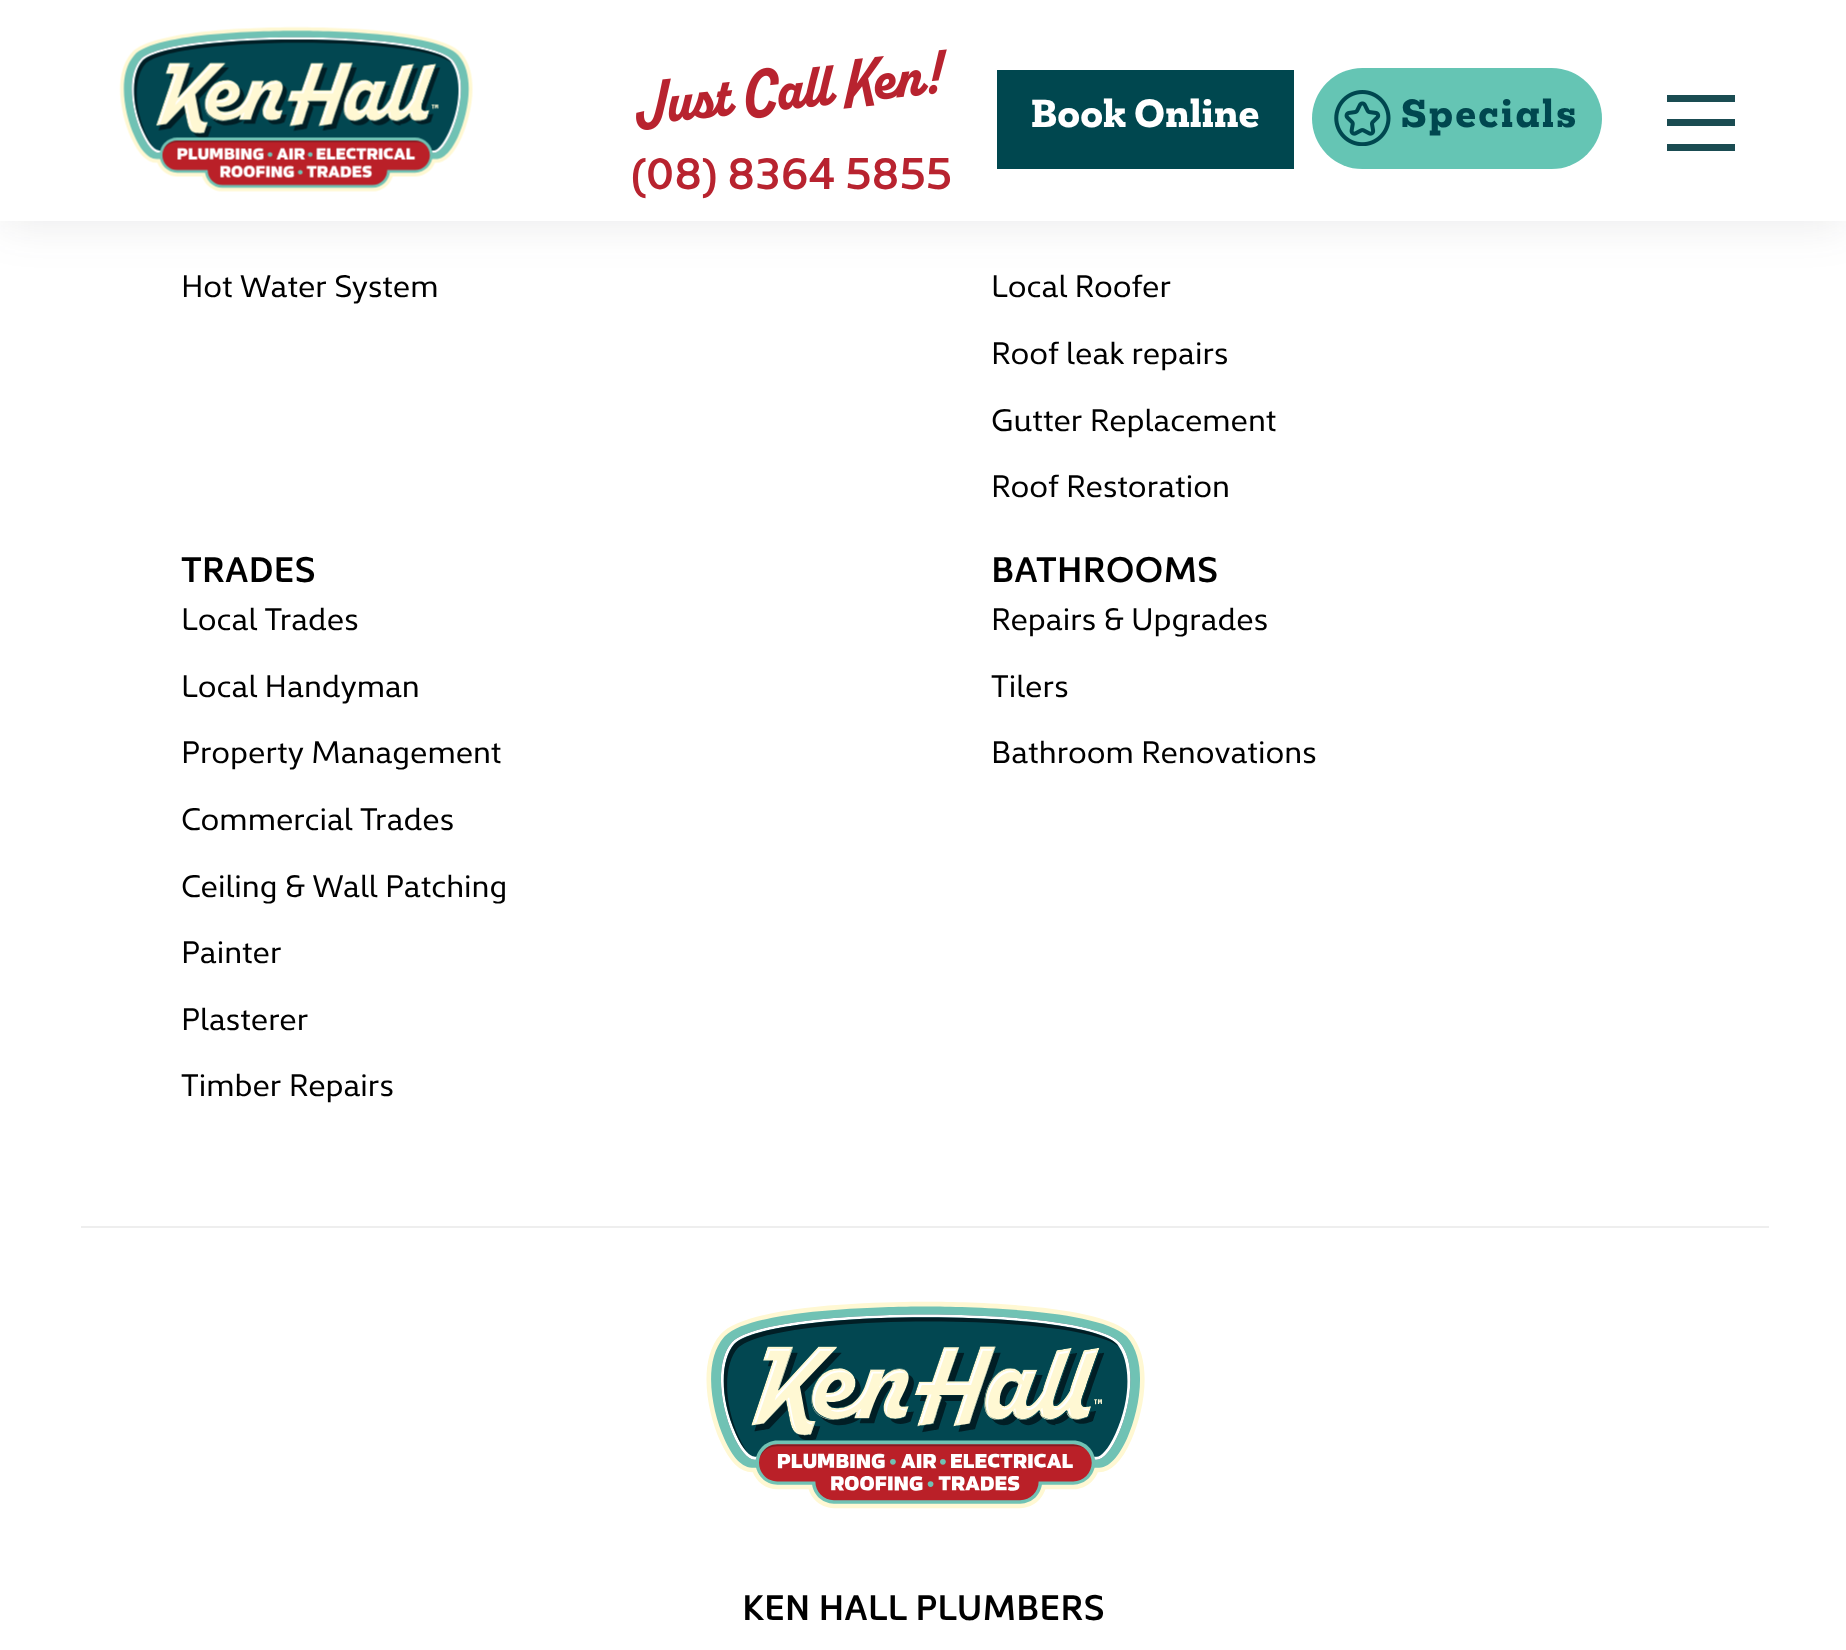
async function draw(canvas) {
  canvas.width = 1846
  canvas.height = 1650
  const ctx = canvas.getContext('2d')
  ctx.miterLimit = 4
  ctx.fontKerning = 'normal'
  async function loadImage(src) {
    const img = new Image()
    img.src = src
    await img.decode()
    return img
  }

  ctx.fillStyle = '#fff'
  ctx.fillRect(0, 0, 1846, 1650)
  ctx.fillStyle = '#393f481a'
  ctx.filter = 'blur(22.5px)'
  ctx.beginPath()
  ctx.rect(0, 5, 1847, 220)
  ctx.fill()
  ctx.filter = 'none'
  ctx.fillStyle = '#fff'
  ctx.fillRect(0, 0, 1846, 221)
  ctx.drawImage(await loadImage('image0.png'), 119, 26, 354, 166)
  ctx.fillStyle = '#00474f'
  ctx.fillRect(997, 70, 297, 99)
  ctx.font = '800 36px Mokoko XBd'
  ctx.fillStyle = '#fff'
  ctx.fillText('Book Online', 1031, 127)
  ctx.fillStyle = '#65c5b4'
  ctx.beginPath()
  ctx.roundRect(1312, 68, 290, 101, 50.5)
  ctx.fill()
  ctx.drawImage(await loadImage('image1.png'), 1334, 90, 57, 56)
  ctx.letterSpacing = '2.25px'
  ctx.fillStyle = '#00474f'
  ctx.fillText('Specials', 1401, 127)
  ctx.drawImage(await loadImage('image2.png'), 636, 49, 311, 81)
  ctx.letterSpacing = '0px'
  ctx.font = '600 45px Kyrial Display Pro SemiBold'
  ctx.fillStyle = '#b8232f'
  ctx.fillText('(08) 8364 5855', 631, 189)
  ctx.fillStyle = '#1a4c52'
  ctx.fillRect(1667, 95, 68, 7)
  ctx.fillRect(1667, 119, 68, 7)
  ctx.fillRect(1667, 144, 68, 7)
  ctx.font = '31.5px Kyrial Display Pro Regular'
  ctx.fillStyle = '#000'
  ctx.fillText('Hot Water System', 181, 297)
  ctx.fillText('Local Roofer', 991, 297)
  ctx.fillText('Roof leak repairs', 991, 364)
  ctx.fillText('Gutter Replacement', 991, 431)
  ctx.fillText('Roof Restoration', 991, 497)
  ctx.font = '600 36px Kyrial Display Pro SemiBold'
  ctx.fillText('TRADES', 181, 582)
  ctx.font = '31.5px Kyrial Display Pro Regular'
  ctx.fillText('Local Trades', 181, 630)
  ctx.fillText('Local Handyman', 181, 697)
  ctx.fillText('Property Management', 181, 763)
  ctx.fillText('Commercial Trades', 181, 830)
  ctx.fillText('Ceiling & Wall Patching', 181, 897)
  ctx.fillText('Painter', 181, 963)
  ctx.fillText('Plasterer', 181, 1030)
  ctx.fillText('Timber Repairs', 181, 1096)
  ctx.font = '600 36px Kyrial Display Pro SemiBold'
  ctx.fillText('BATHROOMS', 991, 582)
  ctx.font = '31.5px Kyrial Display Pro Regular'
  ctx.fillText('Repairs & Upgrades', 991, 630)
  ctx.fillText('Tilers', 991, 697)
  ctx.fillText('Bathroom Renovations', 991, 763)
  ctx.fillStyle = '#eee'
  ctx.fillRect(81, 1226, 1688, 2)
  ctx.drawImage(await loadImage('image3.png'), 706, 1301, 439, 208)
  ctx.font = '600 36px Kyrial Display Pro SemiBold'
  ctx.fillStyle = '#000'
  ctx.fillText('KEN HALL PLUMBERS', 742, 1620)
}

draw(document.querySelector('canvas'))
